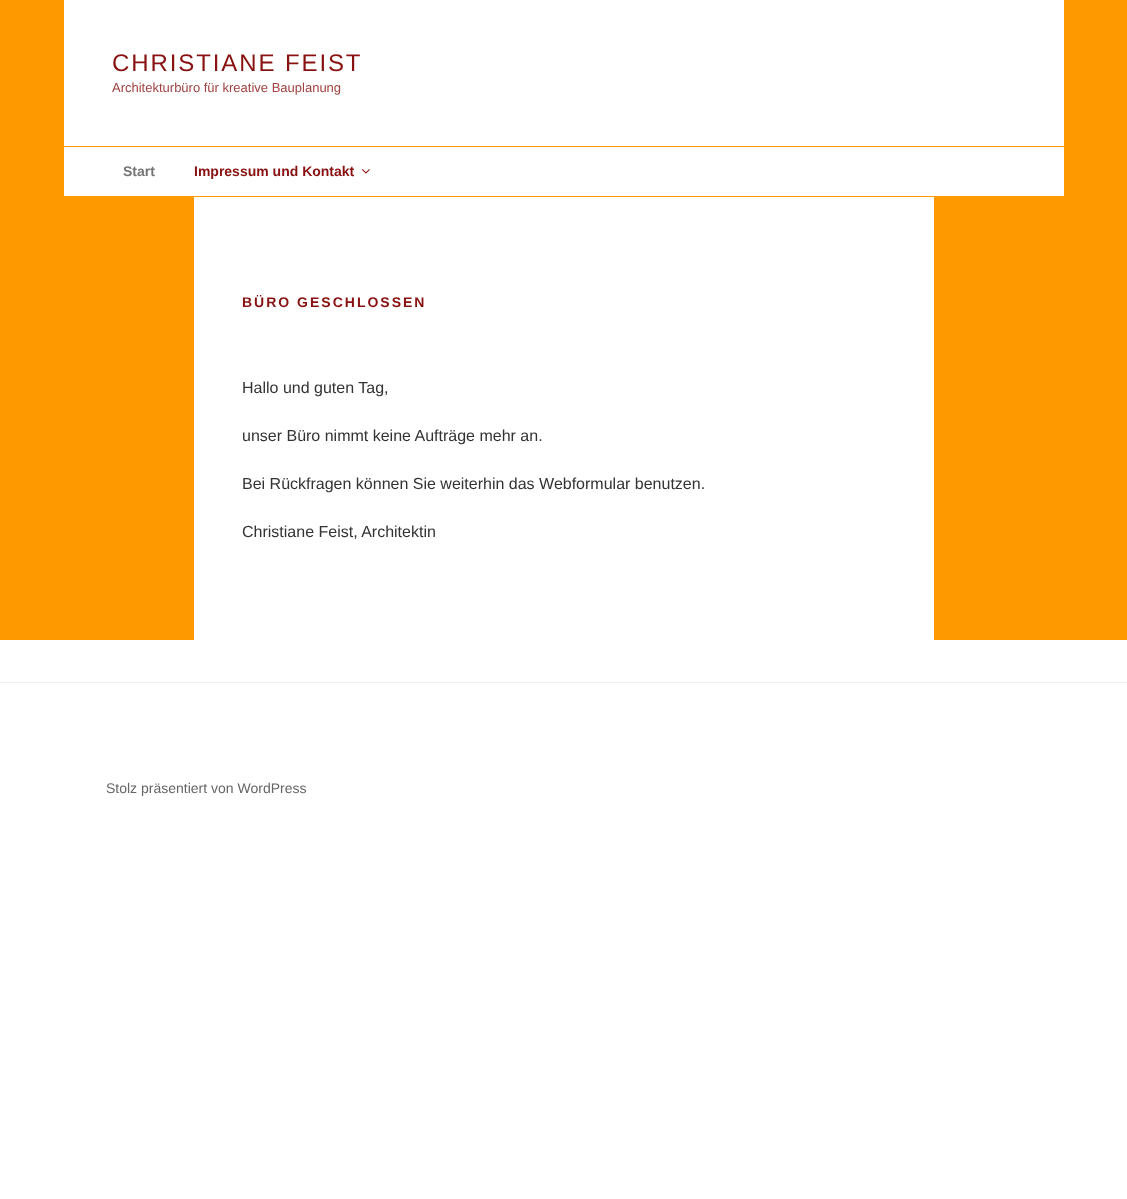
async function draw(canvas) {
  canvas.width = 1127
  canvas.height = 1199
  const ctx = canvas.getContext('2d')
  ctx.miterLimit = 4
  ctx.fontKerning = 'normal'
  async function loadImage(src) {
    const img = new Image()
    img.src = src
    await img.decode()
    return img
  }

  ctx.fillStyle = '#fff'
  ctx.fillRect(0, 0, 1127, 1199)
  ctx.fillStyle = '#f90'
  ctx.fillRect(0, 0, 1127, 640)
  ctx.fillStyle = '#fff'
  ctx.fillRect(64, 0, 1000, 146)
  ctx.letterSpacing = '1.9px'
  ctx.font = '24px Liberation Sans'
  ctx.fillStyle = '#811'
  ctx.fillText('CHRISTIANE FEIST', 112, 71)
  ctx.letterSpacing = '0px'
  ctx.font = '13px Liberation Sans'
  ctx.fillStyle = '#a04141'
  ctx.fillText('Architekturbüro für kreative Bauplanung', 112, 92)
  ctx.fillStyle = '#fff'
  ctx.fillRect(64, 147, 1000, 49)
  ctx.font = 'bold 14px Liberation Sans'
  ctx.fillStyle = '#767676'
  ctx.fillText('Start', 123, 176)
  ctx.fillStyle = '#811'
  ctx.fillText('Impressum und Kontakt', 194, 176)
  ctx.drawImage(await loadImage('image0.png'), 362, 169, 8, 5)
  ctx.fillStyle = '#fff'
  ctx.fillRect(194, 197, 740, 443)
  ctx.letterSpacing = '2px'
  ctx.fillStyle = '#811'
  ctx.fillText('BÜRO GESCHLOSSEN', 242, 307)
  ctx.letterSpacing = '0px'
  ctx.font = '16px Liberation Sans'
  ctx.fillStyle = '#333'
  ctx.fillText('Hallo und guten Tag,', 242, 393)
  ctx.fillText('unser Büro nimmt keine Aufträge mehr an.', 242, 441)
  ctx.fillText('Bei Rückfragen können Sie weiterhin das Webformular benutzen.', 242, 489)
  ctx.fillText('Christiane Feist, Architektin', 242, 537)
  ctx.fillStyle = '#eee'
  ctx.fillRect(0, 682, 1127, 1)
  ctx.font = '14px Liberation Sans'
  ctx.fillStyle = '#666'
  ctx.fillText('Stolz präsentiert von WordPress', 106, 793)
}

draw(document.querySelector('canvas'))
